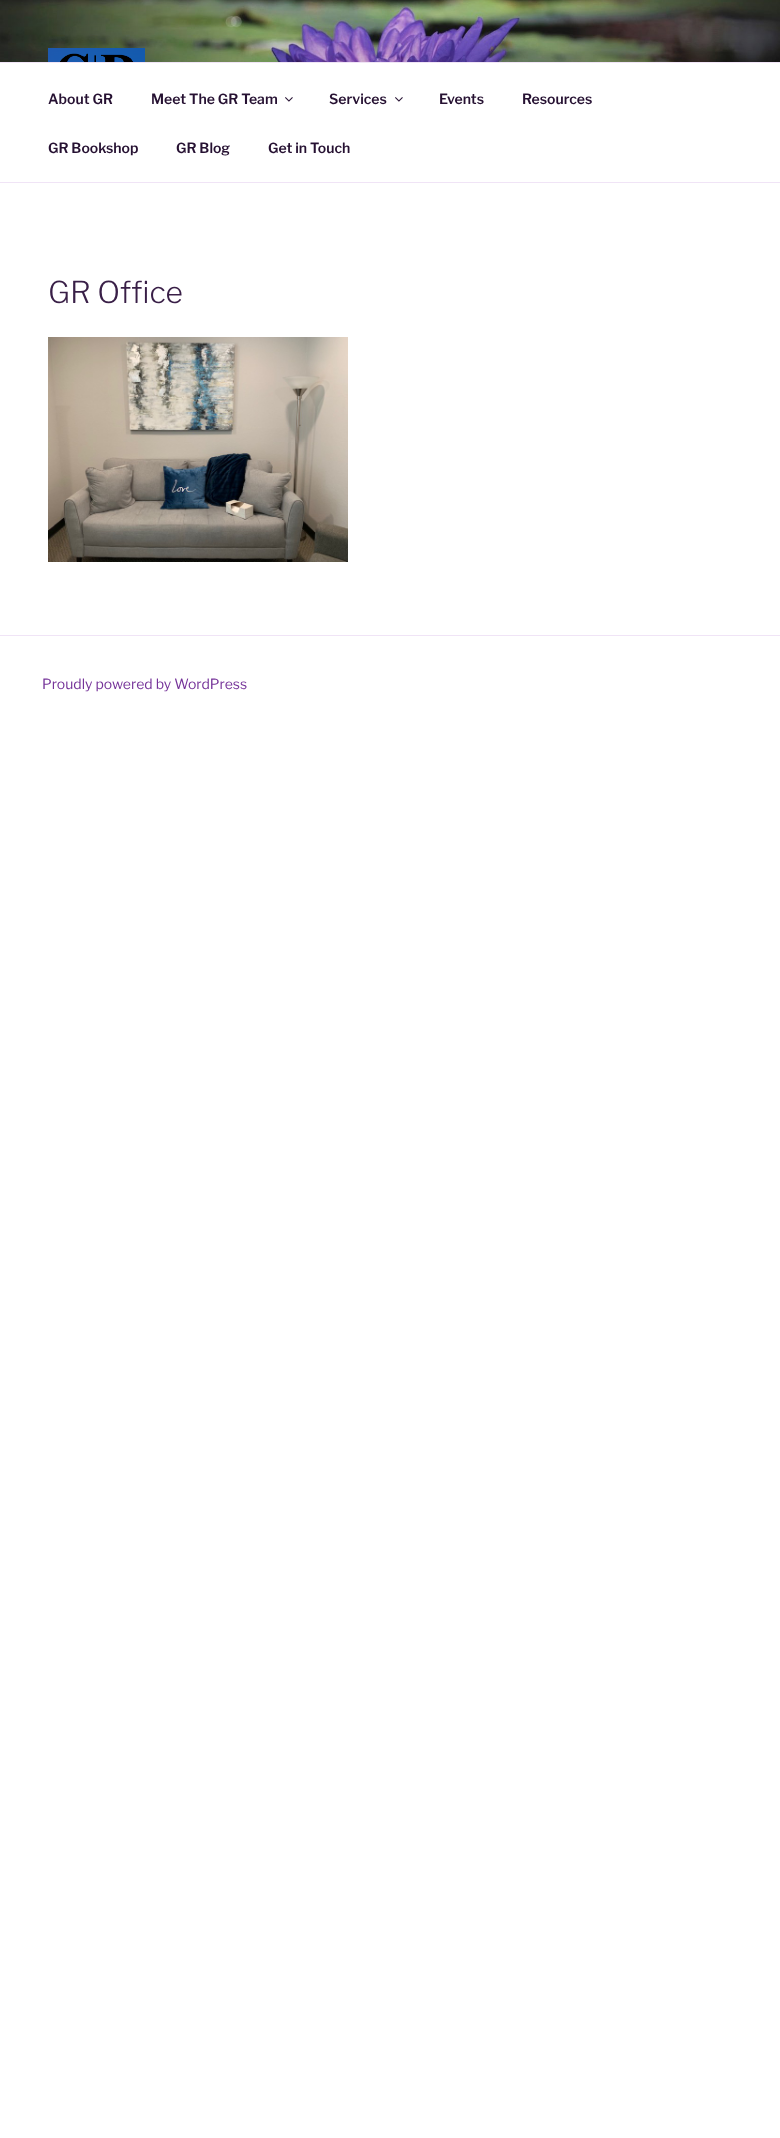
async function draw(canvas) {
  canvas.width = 780
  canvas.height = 2138
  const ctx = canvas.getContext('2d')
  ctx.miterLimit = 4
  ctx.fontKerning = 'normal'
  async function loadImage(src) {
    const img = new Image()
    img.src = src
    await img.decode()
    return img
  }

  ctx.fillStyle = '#fff'
  ctx.fillRect(0, 0, 780, 2138)
  ctx.drawImage(await loadImage('image0.png'), 0, 0, 780, 62)
  ctx.drawImage(await loadImage('image1.png'), 48, 48, 97, 14)
  ctx.fillStyle = '#f0e4f6'
  ctx.fillRect(0, 62, 780, 1)
  ctx.fillRect(0, 182, 780, 1)
  ctx.font = '100 14px "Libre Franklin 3"'
  ctx.fillStyle = '#261132'
  ctx.fillText('About GR', 48, 104)
  ctx.fillText('Meet The GR Team', 151, 104)
  ctx.drawImage(await loadImage('image2.png'), 285, 97, 8, 5)
  ctx.fillText('Services', 329, 104)
  ctx.drawImage(await loadImage('image2.png'), 395, 97, 8, 5)
  ctx.fillText('Events', 439, 104)
  ctx.fillText('Resources', 522, 104)
  ctx.fillText('GR Bookshop', 48, 153)
  ctx.fillText('GR Blog', 176, 153)
  ctx.fillText('Get in Touch', 268, 153)
  ctx.font = '100 30px "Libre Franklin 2"'
  ctx.fillStyle = '#391f47'
  ctx.fillText('GR Office', 48, 303)
  ctx.drawImage(await loadImage('image3.png'), 48, 337, 300, 225)
  ctx.fillStyle = '#f0e4f6'
  ctx.fillRect(0, 635, 780, 1)
  ctx.font = '100 14px Libre Franklin'
  ctx.fillStyle = '#753399'
  ctx.fillText('Proudly powered by WordPress', 42, 689)
}

draw(document.querySelector('canvas'))
